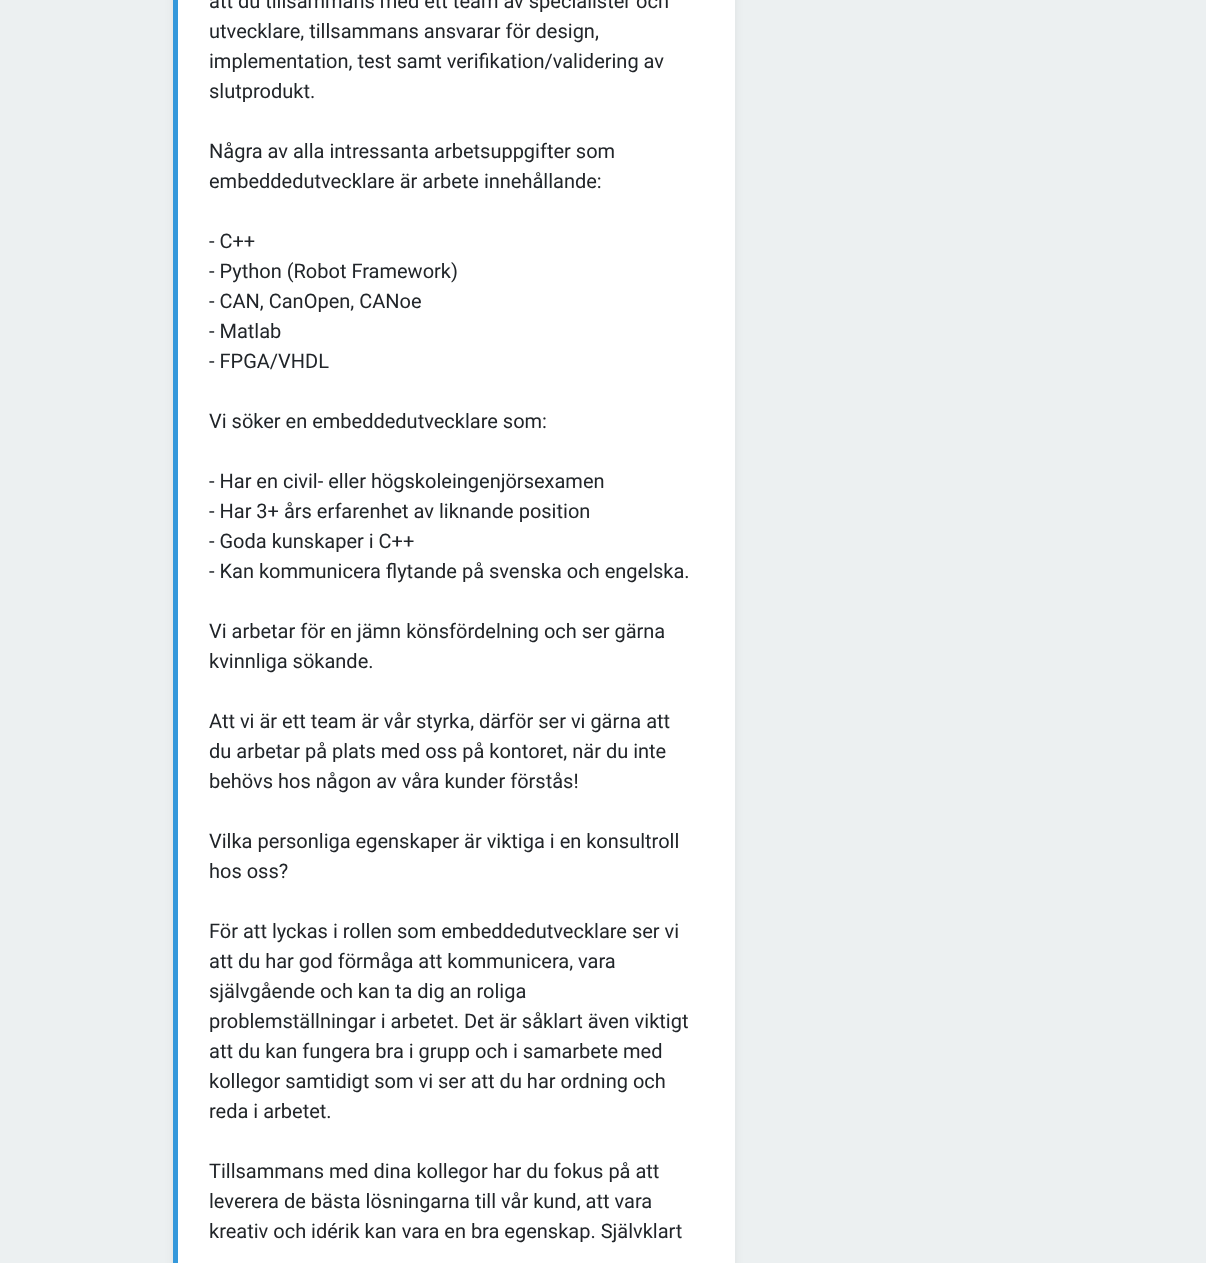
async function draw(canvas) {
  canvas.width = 1206
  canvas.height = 1263
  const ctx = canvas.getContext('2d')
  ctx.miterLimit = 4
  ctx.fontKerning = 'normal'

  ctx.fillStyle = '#ecf0f1'
  ctx.fillRect(0, 0, 1206, 1263)
  ctx.fillStyle = '#0000000f'
  ctx.filter = 'blur(5px)'
  ctx.beginPath()
  ctx.roundRect(173, -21, 562, 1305, 6)
  ctx.fill()
  ctx.filter = 'none'
  ctx.fillStyle = '#fff'
  ctx.fillRect(178, 0, 557, 1263)
  ctx.fillStyle = '#3498db'
  ctx.fillRect(173, 0, 5, 1263)
  ctx.font = '20px Roboto'
  ctx.fillStyle = '#212529'
  ctx.fillText('att du tillsammans med ett team av specialister och', 209, 8)
  ctx.fillText('utvecklare, tillsammans ansvarar för design,', 209, 38)
  ctx.fillText('implementation, test samt verifikation/validering av', 209, 68)
  ctx.fillText('slutprodukt.', 209, 98)
  ctx.fillText('Några av alla intressanta arbetsuppgifter som', 209, 158)
  ctx.fillText('embeddedutvecklare är arbete innehållande:', 209, 188)
  ctx.fillText('- C++', 209, 248)
  ctx.fillText('- Python (Robot Framework)', 209, 278)
  ctx.fillText('- CAN, CanOpen, CANoe', 209, 308)
  ctx.fillText('- Matlab', 209, 338)
  ctx.fillText('- FPGA/VHDL', 209, 368)
  ctx.fillText('Vi söker en embeddedutvecklare som:', 209, 428)
  ctx.fillText('- Har en civil- eller högskoleingenjörsexamen', 209, 488)
  ctx.fillText('- Har 3+ års erfarenhet av liknande position', 209, 518)
  ctx.fillText('- Goda kunskaper i C++', 209, 548)
  ctx.fillText('- Kan kommunicera flytande på svenska och engelska.', 209, 578)
  ctx.fillText('Vi arbetar för en jämn könsfördelning och ser gärna', 209, 638)
  ctx.fillText('kvinnliga sökande.', 209, 668)
  ctx.fillText('Att vi är ett team är vår styrka, därför ser vi gärna att', 209, 728)
  ctx.fillText('du arbetar på plats med oss på kontoret, när du inte', 209, 758)
  ctx.fillText('behövs hos någon av våra kunder förstås!', 209, 788)
  ctx.fillText('Vilka personliga egenskaper är viktiga i en konsultroll', 209, 848)
  ctx.fillText('hos oss?', 209, 878)
  ctx.fillText('För att lyckas i rollen som embeddedutvecklare ser vi', 209, 938)
  ctx.fillText('att du har god förmåga att kommunicera, vara', 209, 968)
  ctx.fillText('självgående och kan ta dig an roliga', 209, 998)
  ctx.fillText('problemställningar i arbetet. Det är såklart även viktigt', 209, 1028)
  ctx.fillText('att du kan fungera bra i grupp och i samarbete med', 209, 1058)
  ctx.fillText('kollegor samtidigt som vi ser att du har ordning och', 209, 1088)
  ctx.fillText('reda i arbetet.', 209, 1118)
  ctx.fillText('Tillsammans med dina kollegor har du fokus på att', 209, 1178)
  ctx.fillText('leverera de bästa lösningarna till vår kund, att vara', 209, 1208)
  ctx.fillText('kreativ och idérik kan vara en bra egenskap. Självklart', 209, 1238)
}

draw(document.querySelector('canvas'))
